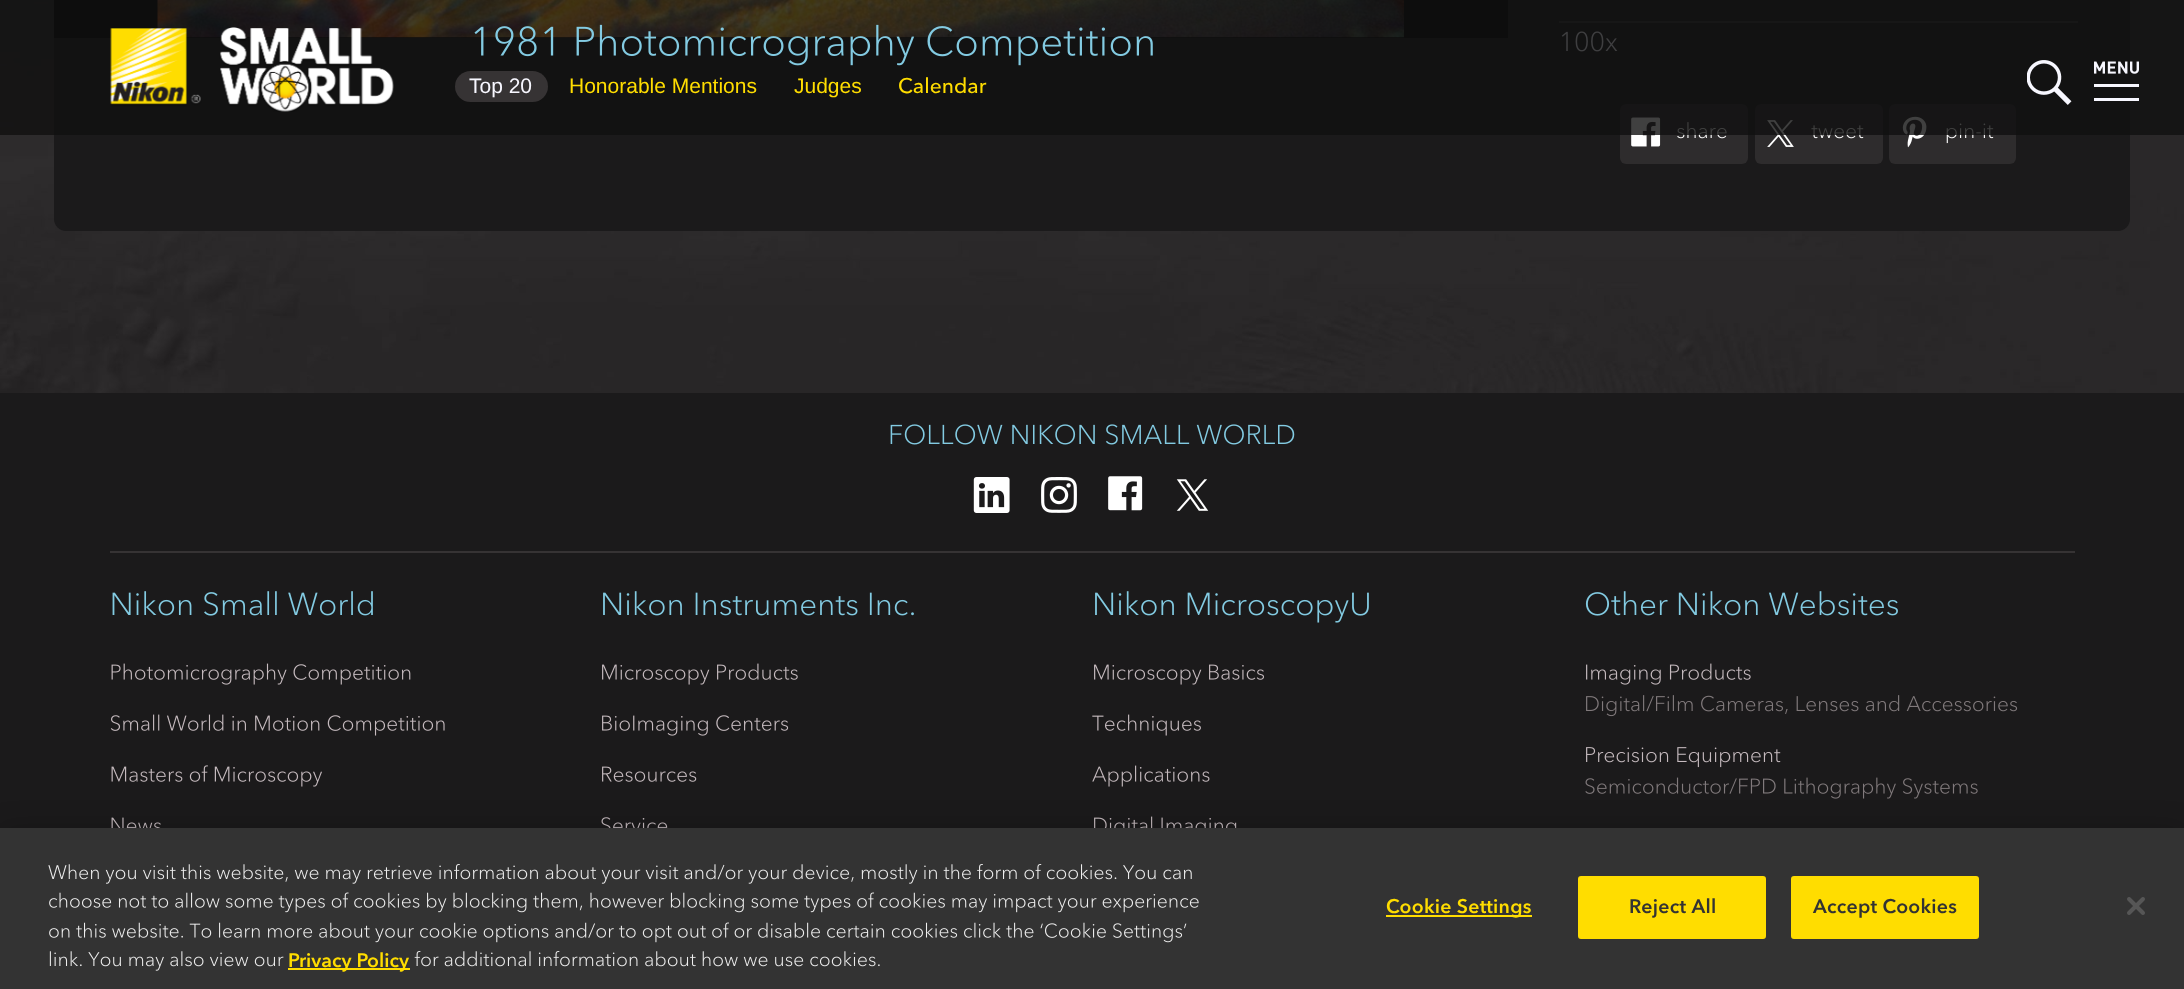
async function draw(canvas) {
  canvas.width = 2184
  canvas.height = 989
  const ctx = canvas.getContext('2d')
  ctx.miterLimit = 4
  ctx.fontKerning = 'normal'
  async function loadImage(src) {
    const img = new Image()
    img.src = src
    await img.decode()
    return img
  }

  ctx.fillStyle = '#fff'
  ctx.fillRect(0, 0, 2184, 989)
  ctx.drawImage(await loadImage('image0.png'), 0, 0, 2184, 393)
  ctx.fillStyle = '#1b1a1b'
  ctx.beginPath()
  ctx.moveTo(54, -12)
  ctx.lineTo(2130, -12)
  ctx.lineTo(2130, 219)
  ctx.bezierCurveTo(2130, 225.5, 2124.5, 231, 2118, 231)
  ctx.lineTo(66, 231)
  ctx.bezierCurveTo(59.5, 231, 54, 225.5, 54, 219)
  ctx.closePath()
  ctx.fill()
  ctx.fillStyle = '#000'
  ctx.fillRect(54, 0, 1454, 38)
  ctx.drawImage(await loadImage('image1.png'), 157, 0, 1247, 38)
  ctx.fillStyle = '#363334'
  ctx.fillRect(1559, 21, 519, 2)
  ctx.drawImage(await loadImage('image2.png'), 1561, 31, 57, 21)
  ctx.fillStyle = '#2e2c2d'
  ctx.beginPath()
  ctx.roundRect(1620, 104, 128, 60, 6)
  ctx.fill()
  ctx.drawImage(await loadImage('image3.png'), 1631, 117, 30, 30)
  ctx.drawImage(await loadImage('image4.png'), 1677, 122, 50, 17)
  ctx.beginPath()
  ctx.roundRect(1755, 104, 128, 60, 6)
  ctx.fill()
  ctx.drawImage(await loadImage('image5.png'), 1767, 120, 27, 27)
  ctx.drawImage(await loadImage('image6.png'), 1811, 125, 53, 14)
  ctx.beginPath()
  ctx.roundRect(1889, 104, 127, 60, 6)
  ctx.fill()
  ctx.drawImage(await loadImage('image7.png'), 1902, 116, 25, 32)
  ctx.drawImage(await loadImage('image8.png'), 1946, 123, 48, 21)
  ctx.fillStyle = '#101010cc'
  ctx.fillRect(0, 0, 2184, 135)
  ctx.drawImage(await loadImage('image9.png'), 110, 27, 284, 85)
  ctx.drawImage(await loadImage('image10.png'), 474, 24, 679, 42)
  ctx.drawImage(await loadImage('image11.png'), 2027, 60, 45, 45)
  ctx.drawImage(await loadImage('image12.png'), 2094, 61, 45, 40)
  ctx.fillStyle = '#363334'
  ctx.beginPath()
  ctx.roundRect(455, 71, 93, 31, 15.5)
  ctx.fill()
  ctx.font = '21px Liberation Sans'
  ctx.fillStyle = '#f7f7ff'
  ctx.fillText('Top 20', 469, 93)
  ctx.fillStyle = '#fd0'
  ctx.fillText('Honorable Mentions', 569, 93)
  ctx.fillText('Judges', 794, 93)
  ctx.font = '500 21px Avenir Next'
  ctx.fillText('Calendar', 898, 93)
  ctx.fillStyle = '#1b1a1b'
  ctx.fillRect(0, 393, 2184, 435)
  ctx.drawImage(await loadImage('image13.png'), 890, 424, 405, 21)
  ctx.drawImage(await loadImage('image14.png'), 973, 477, 37, 36)
  ctx.drawImage(await loadImage('image15.png'), 1041, 477, 36, 36)
  ctx.drawImage(await loadImage('image16.png'), 1108, 476, 35, 35)
  ctx.drawImage(await loadImage('image17.png'), 1176, 479, 33, 32)
  ctx.fillStyle = '#363334'
  ctx.fillRect(110, 551, 1965, 2)
  ctx.drawImage(await loadImage('image18.png'), 112, 591, 261, 25)
  ctx.drawImage(await loadImage('image19.png'), 111, 663, 300, 22)
  ctx.drawImage(await loadImage('image20.png'), 110, 714, 335, 22)
  ctx.drawImage(await loadImage('image21.png'), 111, 765, 211, 22)
  ctx.drawImage(await loadImage('image22.png'), 111, 817, 50, 11)
  ctx.drawImage(await loadImage('image23.png'), 603, 591, 311, 25)
  ctx.drawImage(await loadImage('image24.png'), 602, 663, 196, 22)
  ctx.drawImage(await loadImage('image25.png'), 602, 715, 187, 21)
  ctx.drawImage(await loadImage('image26.png'), 602, 766, 95, 16)
  ctx.drawImage(await loadImage('image27.png'), 601, 817, 67, 11)
  ctx.drawImage(await loadImage('image28.png'), 1095, 591, 274, 32)
  ctx.drawImage(await loadImage('image29.png'), 1094, 664, 170, 21)
  ctx.drawImage(await loadImage('image30.png'), 1092, 714, 109, 22)
  ctx.drawImage(await loadImage('image31.png'), 1092, 765, 118, 22)
  ctx.drawImage(await loadImage('image32.png'), 1094, 816, 143, 12)
  ctx.drawImage(await loadImage('image33.png'), 1585, 591, 313, 25)
  ctx.drawImage(await loadImage('image34.png'), 1586, 663, 165, 22)
  ctx.drawImage(await loadImage('image35.png'), 1586, 695, 432, 22)
  ctx.drawImage(await loadImage('image36.png'), 1586, 747, 195, 21)
  ctx.drawImage(await loadImage('image37.png'), 1585, 777, 393, 22)
  ctx.fillStyle = '#00000033'
  ctx.filter = 'blur(13.5px)'
  ctx.beginPath()
  ctx.rect(0, 828, 2184, 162)
  ctx.fill()
  ctx.filter = 'none'
  ctx.fillStyle = '#333'
  ctx.fillRect(0, 828, 2184, 161)
  ctx.fillStyle = '#fd0'
  ctx.fillRect(1386, 915, 146, 2)
  ctx.letterSpacing = '0.25px'
  ctx.font = 'bold 19.5px Avenir Next'
  ctx.fillText('Cookie Settings', 1386, 913)
  ctx.beginPath()
  ctx.roundRect(1579, 877, 186, 61, 2)
  ctx.fill()
  ctx.strokeStyle = '#fd0'
  ctx.lineWidth = 2
  ctx.stroke()
  ctx.fillStyle = '#333'
  ctx.fillText('Reject All', 1629, 913)
  ctx.fillStyle = '#fd0'
  ctx.beginPath()
  ctx.roundRect(1792, 877, 186, 61, 2)
  ctx.fill()
  ctx.stroke()
  ctx.fillStyle = '#333'
  ctx.fillText('Accept Cookies', 1813, 913)
  ctx.drawImage(await loadImage('image38.png'), 48, 864, 1144, 20)
  ctx.drawImage(await loadImage('image39.png'), 49, 892, 1150, 21)
  ctx.drawImage(await loadImage('image40.png'), 49, 922, 1138, 21)
  ctx.drawImage(await loadImage('image41.png'), 49, 951, 235, 20)
  ctx.fillStyle = '#fd0'
  ctx.fillRect(288, 968, 122, 2)
  ctx.letterSpacing = '0px'
  ctx.fillText('Privacy Policy', 288, 967)
  ctx.drawImage(await loadImage('image42.png'), 414, 951, 466, 16)
  ctx.drawImage(await loadImage('image43.png'), 2127, 897, 18, 18)
}

draw(document.querySelector('canvas'))
